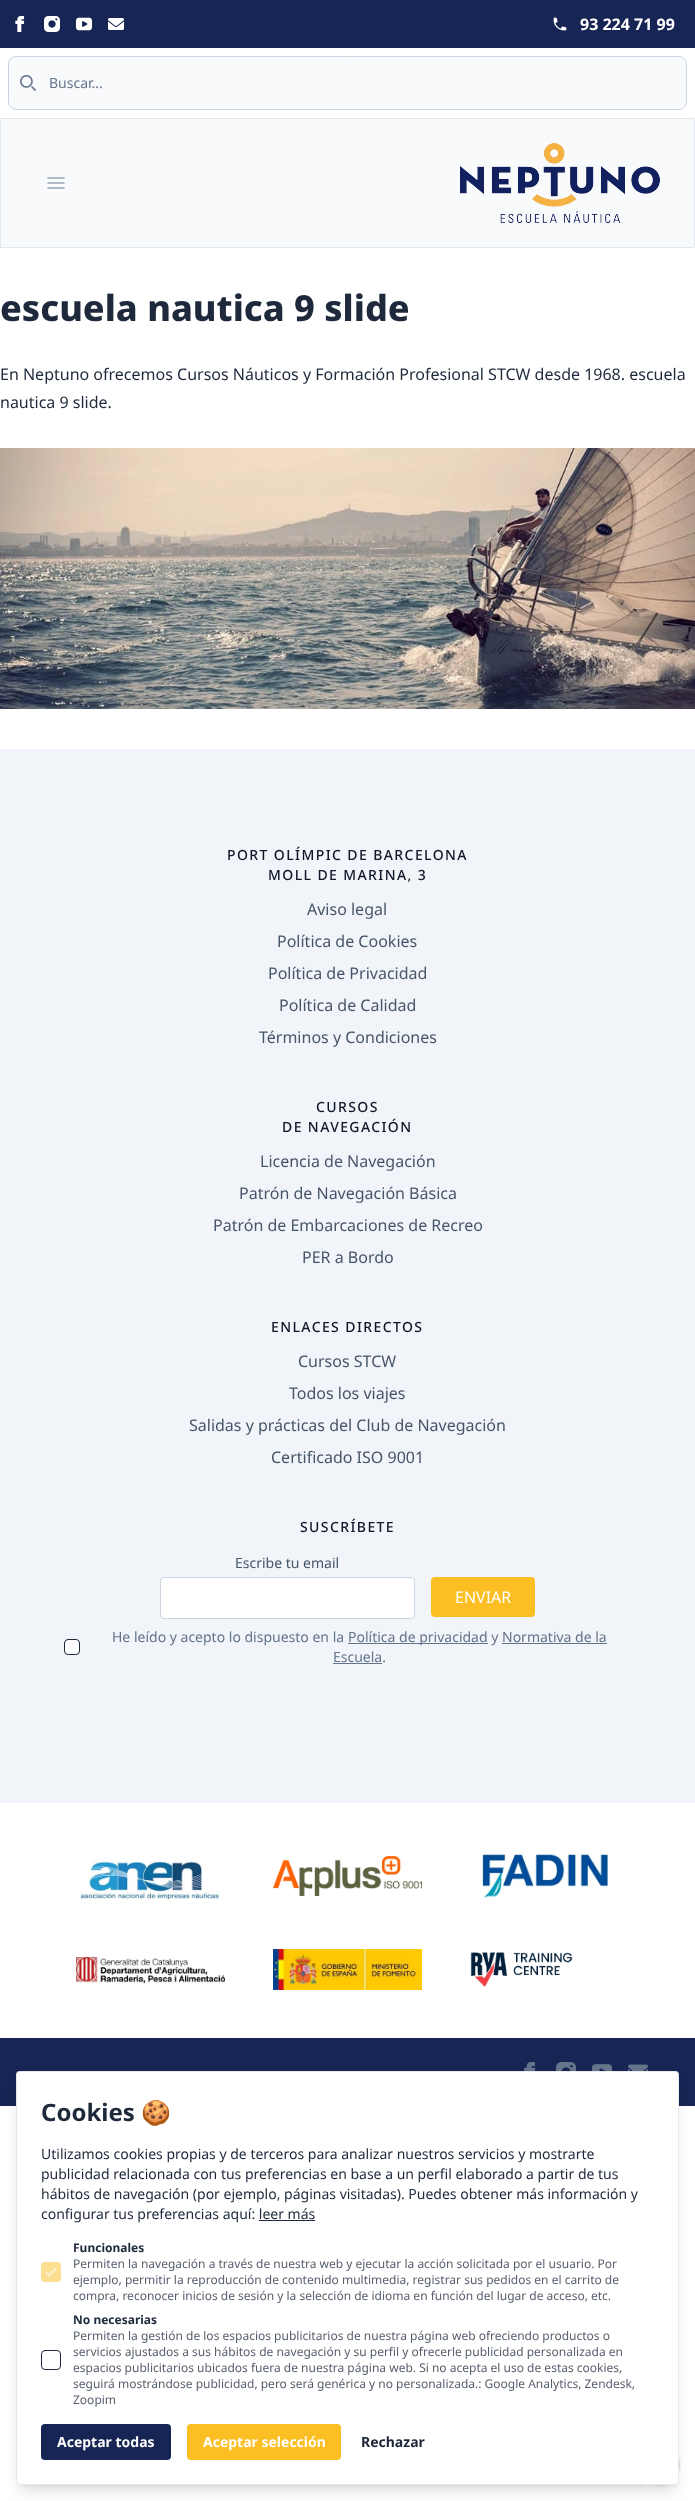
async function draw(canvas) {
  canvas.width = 695
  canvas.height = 2501
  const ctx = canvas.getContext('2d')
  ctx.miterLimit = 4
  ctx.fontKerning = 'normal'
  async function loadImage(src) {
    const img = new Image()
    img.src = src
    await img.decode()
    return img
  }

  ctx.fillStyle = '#fff'
  ctx.fillRect(0, 0, 695, 2501)
  ctx.fillStyle = '#172554'
  ctx.fillRect(0, 0, 695, 48)
  ctx.drawImage(await loadImage('image0.png'), 15, 16, 10, 16)
  ctx.drawImage(await loadImage('image1.png'), 44, 16, 16, 16)
  ctx.drawImage(await loadImage('image2.png'), 76, 17, 16, 14)
  ctx.drawImage(await loadImage('image3.png'), 108, 18, 16, 12)
  ctx.drawImage(await loadImage('image4.png'), 553, 17, 14, 14)
  ctx.font = 'bold 16px Noto Sans'
  ctx.fillStyle = '#fff'
  ctx.fillText('93 224 71 99', 580, 30)
  ctx.fillStyle = '#f8fafc'
  ctx.beginPath()
  ctx.roundRect(8.5, 56.5, 678, 53, 7.5)
  ctx.fill()
  ctx.strokeStyle = '#cbd5e1'
  ctx.stroke()
  ctx.drawImage(await loadImage('image5.png'), 20, 75, 16, 16)
  ctx.font = '14px Noto Sans'
  ctx.fillStyle = '#64748b'
  ctx.fillText('Buscar...', 49, 88)
  ctx.fillStyle = '#f8fafc'
  ctx.beginPath()
  ctx.rect(0.5, 118.5, 694, 129)
  ctx.fill()
  ctx.strokeStyle = '#e2e8f0'
  ctx.stroke()
  ctx.beginPath()
  ctx.moveTo(48, 178)
  ctx.lineTo(64, 178)
  ctx.moveTo(48, 183)
  ctx.lineTo(64, 183)
  ctx.moveTo(48, 188)
  ctx.lineTo(64, 188)
  ctx.strokeStyle = '#94a3b8'
  ctx.lineWidth = 1.5
  ctx.lineCap = 'round'
  ctx.lineJoin = 'round'
  ctx.stroke()
  ctx.drawImage(await loadImage('image6.png'), 460, 143, 200, 80)
  ctx.font = '800 36px Noto Sans'
  ctx.fillStyle = '#1e293b'
  ctx.fillText('escuela nautica 9 slide', 0, 321)
  ctx.font = '16px Noto Sans'
  ctx.fillText('En Neptuno ofrecemos Cursos Náuticos y Formación Profesional STCW desde 1968. escuela', 0, 380)
  ctx.fillText('nautica 9 slide.', 0, 408)
  ctx.drawImage(await loadImage('image7.png'), 0, 448, 695, 261)
  ctx.fillStyle = '#f1f5f9'
  ctx.fillRect(0, 749, 695, 1054)
  ctx.letterSpacing = '1.4px'
  ctx.font = '500 14px Noto Sans'
  ctx.fillStyle = '#0f172a'
  ctx.fillText('PORT OLÍMPIC DE BARCELONA', 227, 860)
  ctx.fillText('MOLL DE MARINA, 3', 268, 880)
  ctx.letterSpacing = '0px'
  ctx.font = '16px Noto Sans'
  ctx.fillStyle = '#475569'
  ctx.fillText('Aviso legal', 307, 915)
  ctx.fillText('Política de Cookies', 277, 947)
  ctx.fillText('Política de Privacidad', 268, 979)
  ctx.fillText('Política de Calidad', 279, 1011)
  ctx.fillText('Términos y Condiciones', 259, 1043)
  ctx.letterSpacing = '1.4px'
  ctx.font = '500 14px Noto Sans'
  ctx.fillStyle = '#0f172a'
  ctx.fillText('CURSOS', 316, 1112)
  ctx.fillText('DE NAVEGACIÓN', 282, 1132)
  ctx.letterSpacing = '0px'
  ctx.font = '16px Noto Sans'
  ctx.fillStyle = '#475569'
  ctx.fillText('Licencia de Navegación', 260, 1167)
  ctx.fillText('Patrón de Navegación Básica', 239, 1199)
  ctx.fillText('Patrón de Embarcaciones de Recreo', 213, 1231)
  ctx.fillText('PER a Bordo', 302, 1263)
  ctx.letterSpacing = '1.4px'
  ctx.font = '500 14px Noto Sans'
  ctx.fillStyle = '#0f172a'
  ctx.fillText('ENLACES DIRECTOS', 271, 1332)
  ctx.letterSpacing = '0px'
  ctx.font = '16px Noto Sans'
  ctx.fillStyle = '#475569'
  ctx.fillText('Cursos STCW', 298, 1367)
  ctx.fillText('Todos los viajes', 289, 1399)
  ctx.fillText('Salidas y prácticas del Club de Navegación', 189, 1431)
  ctx.fillText('Certificado ISO 9001', 271, 1463)
  ctx.letterSpacing = '1.4px'
  ctx.font = '500 14px Noto Sans'
  ctx.fillStyle = '#0f172a'
  ctx.fillText('SUSCRÍBETE', 300, 1532)
  ctx.letterSpacing = '0px'
  ctx.font = '14px Noto Sans'
  ctx.fillStyle = '#475569'
  ctx.fillText('Escribe tu email', 235, 1568)
  ctx.fillStyle = '#fff'
  ctx.beginPath()
  ctx.roundRect(160.5, 1577.5, 254, 41, 3.5)
  ctx.fill()
  ctx.strokeStyle = '#cbd5e1'
  ctx.lineWidth = 1
  ctx.lineJoin = 'miter'
  ctx.stroke()
  ctx.fillStyle = '#fbbf24'
  ctx.beginPath()
  ctx.roundRect(431, 1577, 104, 40, 4)
  ctx.fill()
  ctx.font = '16px Noto Sans'
  ctx.fillStyle = '#fff'
  ctx.fillText('ENVIAR', 455, 1603)
  ctx.beginPath()
  ctx.roundRect(64.5, 1639.5, 15, 15, 3.5)
  ctx.fill()
  ctx.strokeStyle = '#1e293b'
  ctx.stroke()
  ctx.font = '14px Noto Sans'
  ctx.fillStyle = '#64748b'
  ctx.fillText('He leído y acepto lo dispuesto en la', 112, 1642)
  ctx.fillRect(348, 1643, 140, 1)
  ctx.fillText('Política de privacidad y Normativa de la', 348, 1642)
  ctx.fillText('Escuela.', 333, 1662)
  ctx.fillRect(502, 1643, 105, 1)
  ctx.fillRect(333, 1663, 49, 1)
  ctx.drawImage(await loadImage('image8.png'), 80, 1861, 139, 40)
  ctx.drawImage(await loadImage('image9.png'), 273, 1856, 149, 40)
  ctx.drawImage(await loadImage('image10.png'), 482, 1852, 127, 46)
  ctx.drawImage(await loadImage('image11.png'), 76, 1957, 149, 26)
  ctx.drawImage(await loadImage('image12.png'), 273, 1949, 149, 41)
  ctx.drawImage(await loadImage('image13.png'), 470, 1952, 103, 35)
  ctx.fillStyle = '#172554'
  ctx.fillRect(0, 2038, 695, 68)
  ctx.drawImage(await loadImage('image14.png'), 524, 2062, 12, 9)
  ctx.drawImage(await loadImage('image15.png'), 556, 2062, 20, 9)
  ctx.drawImage(await loadImage('image16.png'), 592, 2064, 20, 7)
  ctx.drawImage(await loadImage('image17.png'), 628, 2064, 20, 7)
  ctx.drawImage(await loadImage('image18.png'), 637, 2456, 44, 31)
  ctx.fillStyle = '#0000001a'
  ctx.filter = 'blur(3px)'
  ctx.beginPath()
  ctx.rect(20, 2079, 655, 406)
  ctx.fill()
  ctx.filter = 'none'
  ctx.filter = 'blur(7.5px)'
  ctx.beginPath()
  ctx.roundRect(19, 2084, 657, 408, 1)
  ctx.fill()
  ctx.filter = 'none'
  ctx.fillStyle = '#fff'
  ctx.beginPath()
  ctx.roundRect(16, 2071, 663, 414, 4)
  ctx.fill()
  ctx.beginPath()
  ctx.roundRect(16.5, 2071.5, 662, 413, 3.5)
  ctx.strokeStyle = '#1e293b1a'
  ctx.stroke()
  ctx.font = 'bold 24px Noto Sans'
  ctx.fillStyle = '#1e293b'
  ctx.fillText('Cookies', 41, 2121)
  ctx.font = 'bold 24px Noto Color Emoji'
  ctx.fillText('🍪', 141, 2121)
  ctx.font = '14px Noto Sans'
  ctx.fillText('Utilizamos cookies propias y de terceros para analizar nuestros servicios y mostrarte', 41, 2159)
  ctx.fillText('publicidad relacionada con tus preferencias en base a un perfil elaborado a partir de tus', 41, 2179)
  ctx.fillText('hábitos de navegación (por ejemplo, páginas visitadas). Puedes obtener más información y', 41, 2199)
  ctx.fillText('configurar tus preferencias aquí: leer más', 41, 2219)
  ctx.fillRect(259, 2220, 56, 1)
  ctx.fillStyle = '#fddf92'
  ctx.beginPath()
  ctx.roundRect(41, 2262, 20, 20, 4)
  ctx.fill()
  ctx.drawImage(await loadImage('image19.png'), 45, 2267, 12, 10)
  ctx.font = 'bold 12px Noto Sans'
  ctx.fillStyle = '#1e293b'
  ctx.fillText('Funcionales', 73, 2252)
  ctx.font = '12px Noto Sans'
  ctx.fillStyle = '#565f6c'
  ctx.fillText('Permiten la navegación a través de nuestra web y ejecutar la acción solicitada por el usuario. Por', 73, 2268)
  ctx.fillText('ejemplo, permitir la reproducción de contenido multimedia, registrar sus pedidos en el carrito de', 73, 2284)
  ctx.fillText('compra, reconocer inicios de sesión y la selección de idioma en función del lugar de acceso, etc.', 73, 2300)
  ctx.beginPath()
  ctx.roundRect(41.5, 2350.5, 19, 19, 3.5)
  ctx.strokeStyle = '#1e293b'
  ctx.stroke()
  ctx.font = 'bold 12px Noto Sans'
  ctx.fillStyle = '#1e293b'
  ctx.fillText('No necesarias', 73, 2324)
  ctx.font = '12px Noto Sans'
  ctx.fillStyle = '#565f6c'
  ctx.fillText('Permiten la gestión de los espacios publicitarios de nuestra página web ofreciendo productos o', 73, 2340)
  ctx.fillText('servicios ajustados a sus hábitos de navegación y su perfil y ofrecerle publicidad personalizada en', 73, 2356)
  ctx.fillText('espacios publicitarios ubicados fuera de nuestra página web. Si no acepta el uso de estas cookies,', 73, 2372)
  ctx.fillText('seguirá mostrándose publicidad, pero será genérica y no personalizada.: Google Analytics, Zendesk,', 73, 2388)
  ctx.fillText('Zoopim', 73, 2404)
  ctx.fillStyle = '#172554'
  ctx.beginPath()
  ctx.roundRect(41, 2424, 130, 36, 4)
  ctx.fill()
  ctx.font = 'bold 14px Noto Sans'
  ctx.fillStyle = '#fff'
  ctx.fillText('Aceptar todas', 57, 2447)
  ctx.fillStyle = '#fbbf24'
  ctx.beginPath()
  ctx.roundRect(187, 2424, 154, 36, 4)
  ctx.fill()
  ctx.fillStyle = '#fff'
  ctx.fillText('Aceptar selección', 203, 2447)
  ctx.fillStyle = '#1e293b'
  ctx.fillText('Rechazar', 361, 2447)
}

draw(document.querySelector('canvas'))
